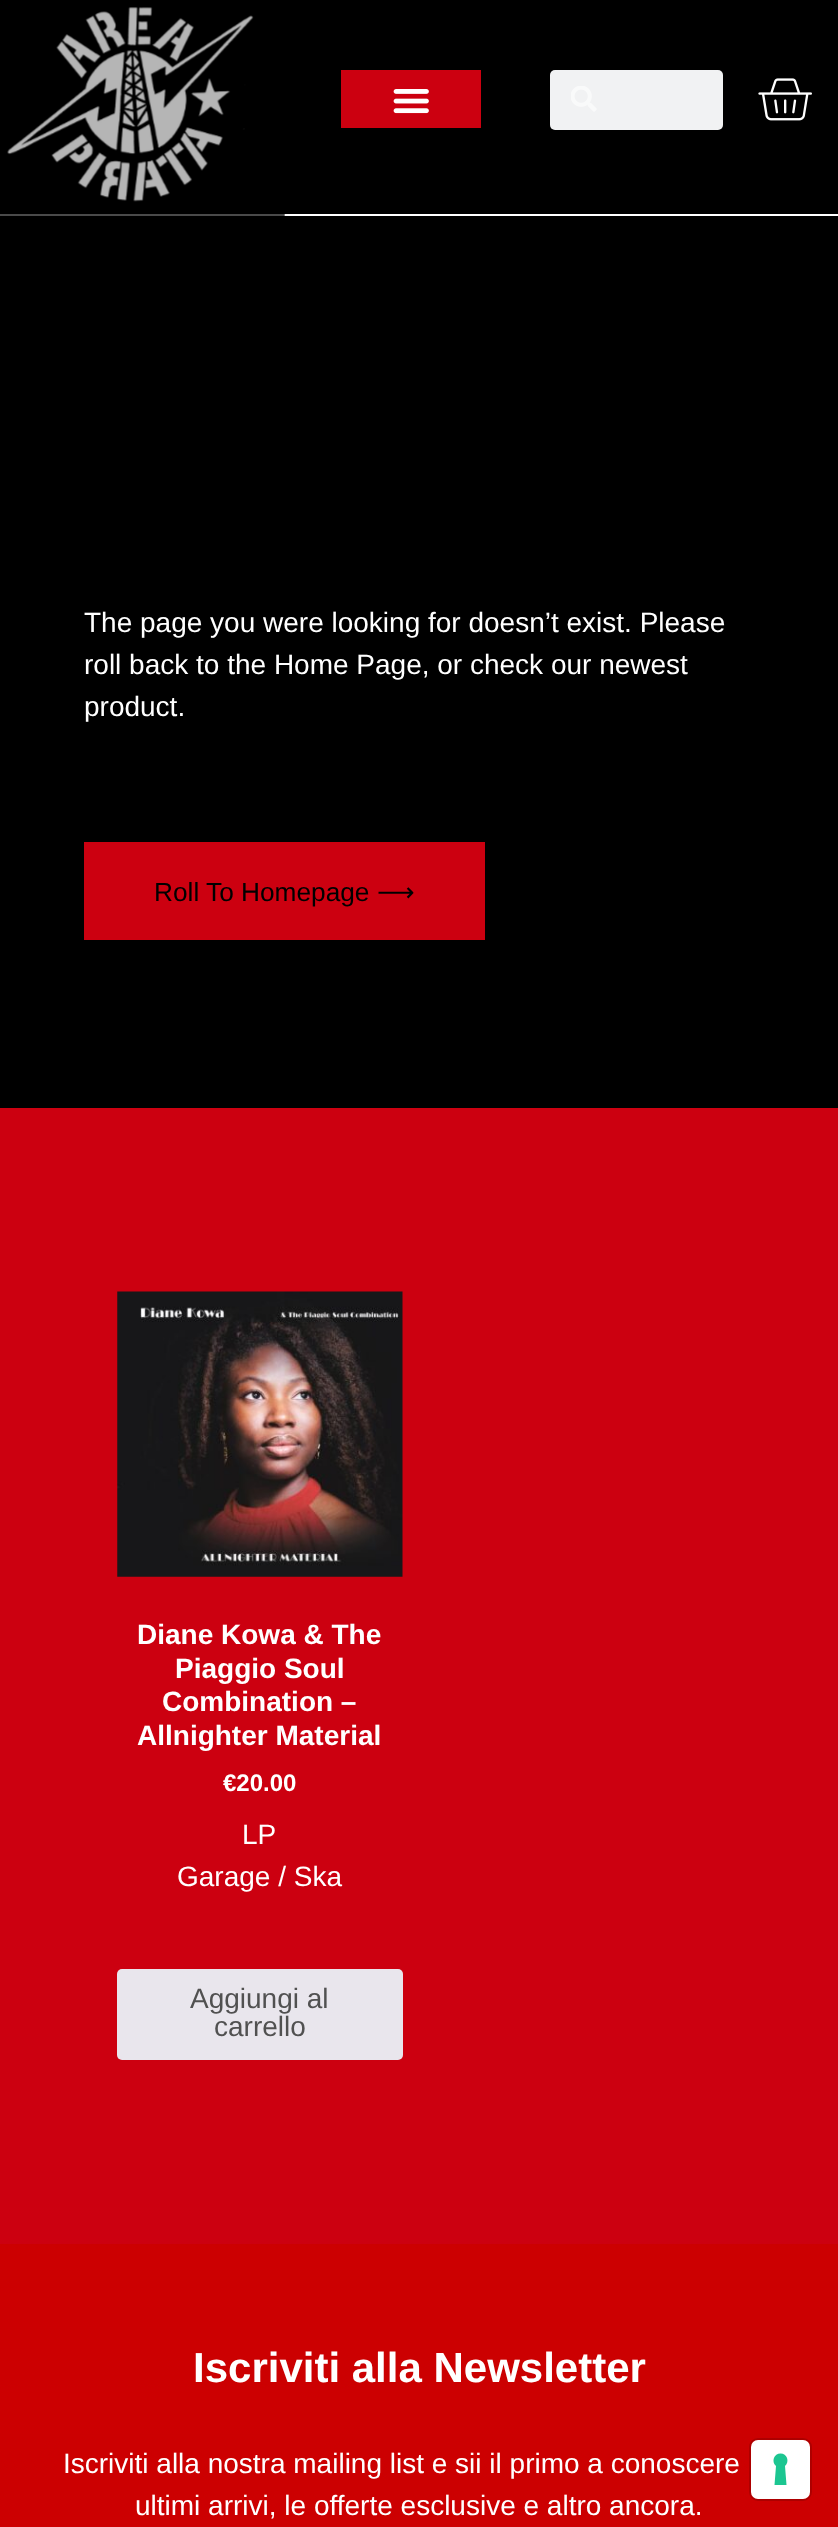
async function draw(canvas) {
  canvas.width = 838
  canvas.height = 2527
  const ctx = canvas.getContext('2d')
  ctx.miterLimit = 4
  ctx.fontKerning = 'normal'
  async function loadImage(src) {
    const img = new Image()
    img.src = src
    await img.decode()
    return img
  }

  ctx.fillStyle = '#000'
  ctx.fillRect(0, 0, 838, 2527)
  ctx.fillStyle = '#fff'
  ctx.fillRect(0, 214, 838, 2)
  ctx.drawImage(await loadImage('image0.png'), 0, 7, 285, 209)
  ctx.fillStyle = '#cc0010'
  ctx.fillRect(341, 70, 140, 58)
  ctx.drawImage(await loadImage('image1.png'), 393, 89, 36, 25)
  ctx.fillStyle = '#f1f2f3'
  ctx.beginPath()
  ctx.roundRect(550, 70, 173, 60, 5)
  ctx.fill()
  ctx.drawImage(await loadImage('image2.png'), 571, 86, 26, 26)
  ctx.drawImage(await loadImage('image3.png'), 758, 78, 54, 43)
  ctx.font = '28px Liberation Sans'
  ctx.fillStyle = '#fff'
  ctx.fillText('The page you were looking for doesn’t exist. Please', 84, 632)
  ctx.fillText('roll back to the Home Page, or check our newest', 84, 674)
  ctx.fillText('product.', 84, 716)
  ctx.fillStyle = '#cc0010'
  ctx.fillRect(84, 842, 401, 98)
  ctx.font = '26.25px Liberation Sans'
  ctx.fillStyle = '#000'
  ctx.fillText('Roll To Homepage', 154, 901)
  ctx.font = '26.25px DejaVu Sans'
  ctx.fillText('⟶', 377, 901)
  ctx.fillStyle = '#cc0010'
  ctx.fillRect(0, 1108, 838, 1136)
  ctx.drawImage(await loadImage('image4.png'), 117, 1291, 286, 286)
  ctx.font = 'bold 28px Liberation Sans'
  ctx.fillStyle = '#fff'
  ctx.fillText('Diane Kowa & The', 137, 1644)
  ctx.fillText('Piaggio Soul', 175, 1678)
  ctx.fillText('Combination –', 162, 1711)
  ctx.fillText('Allnighter Material', 137, 1745)
  ctx.font = 'bold 24px Liberation Sans'
  ctx.fillText('€20.00', 223, 1791)
  ctx.font = '28px Liberation Sans'
  ctx.fillText('LP', 242, 1844)
  ctx.fillText('Garage / Ska', 177, 1886)
  ctx.fillStyle = '#e9e6ed'
  ctx.beginPath()
  ctx.roundRect(117, 1969, 286, 91, 5)
  ctx.fill()
  ctx.fillStyle = '#515151'
  ctx.fillText('Aggiungi al', 190, 2008)
  ctx.fillText('carrello', 214, 2036)
  ctx.fillStyle = '#cc0001'
  ctx.fillRect(0, 2244, 838, 283)
  ctx.font = 'bold 42px Liberation Sans'
  ctx.fillStyle = '#fff'
  ctx.fillText('Iscriviti alla Newsletter', 193, 2382)
  ctx.font = '28px Liberation Sans'
  ctx.fillText('Iscriviti alla nostra mailing list e sii il primo a conoscere', 63, 2473)
  ctx.fillText('ultimi arrivi, le offerte esclusive e altro ancora.', 135, 2515)
  ctx.beginPath()
  ctx.roundRect(750, 2439, 61, 61, 8)
  ctx.strokeStyle = '#00000026'
  ctx.lineWidth = 2
  ctx.stroke()
  ctx.beginPath()
  ctx.roundRect(751, 2440, 59, 59, 7)
  ctx.fill()
  ctx.fillStyle = '#1cc691'
  ctx.beginPath()
  ctx.moveTo(780.5, 2453.5)
  ctx.bezierCurveTo(787, 2453.5, 790, 2461.5, 785, 2466)
  ctx.lineTo(786.5, 2485)
  ctx.lineTo(774.5, 2485)
  ctx.lineTo(776, 2466)
  ctx.bezierCurveTo(771, 2461.5, 774, 2453.5, 780.5, 2453.5)
  ctx.closePath()
  ctx.fill('evenodd')
}

draw(document.querySelector('canvas'))
